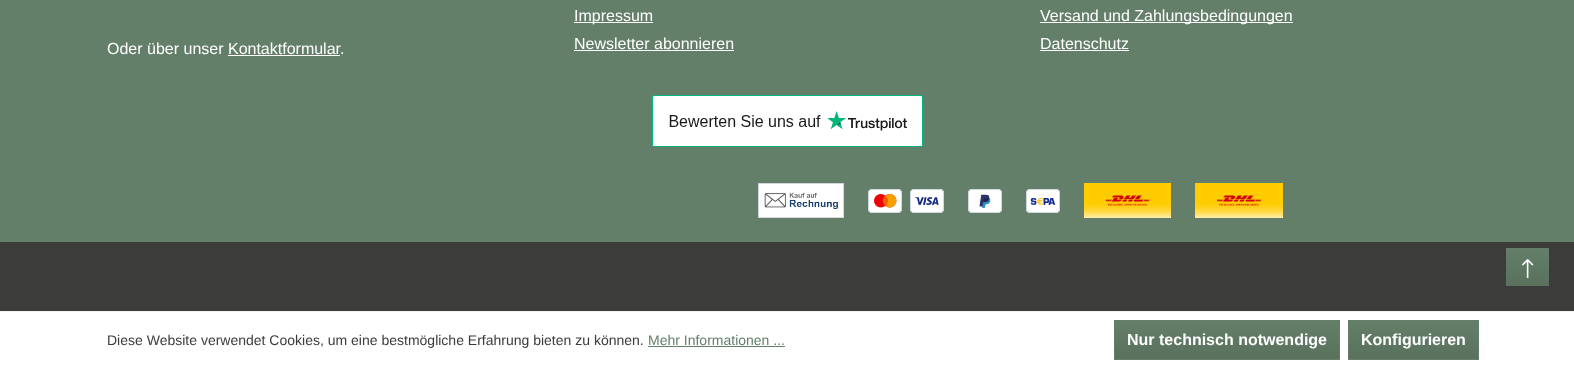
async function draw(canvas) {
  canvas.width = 1574
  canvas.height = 368
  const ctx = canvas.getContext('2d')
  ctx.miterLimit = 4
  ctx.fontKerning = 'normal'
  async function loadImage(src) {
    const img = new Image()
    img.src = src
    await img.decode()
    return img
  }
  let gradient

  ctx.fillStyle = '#647f69'
  ctx.fillRect(0, 0, 1574, 368)
  ctx.font = '16px Liberation Sans'
  ctx.fillStyle = '#fff'
  ctx.fillText('Oder über unser Kontaktformular', 107, 54)
  ctx.fillText('.', 340, 54)
  ctx.fillRect(228, 55, 112, 1)
  ctx.fillRect(574, 22, 79, 1)
  ctx.fillText('Impressum', 574, 21)
  ctx.fillText('Newsletter abonnieren', 574, 49)
  ctx.fillRect(574, 50, 160, 1)
  ctx.fillRect(1040, 22, 253, 1)
  ctx.fillText('Versand und Zahlungsbedingungen', 1040, 21)
  ctx.fillText('Datenschutz', 1040, 49)
  ctx.fillRect(1040, 50, 89, 1)
  ctx.drawImage(await loadImage('image0.png'), 652, 95, 271, 52)
  ctx.drawImage(await loadImage('image1.png'), 758, 183, 86, 35)
  ctx.drawImage(await loadImage('image2.png'), 868, 189, 76, 24)
  ctx.drawImage(await loadImage('image3.png'), 968, 189, 34, 24)
  ctx.drawImage(await loadImage('image4.png'), 1026, 189, 34, 24)
  ctx.drawImage(await loadImage('image5.png'), 1084, 183, 87, 35)
  ctx.drawImage(await loadImage('image6.png'), 1195, 183, 88, 35)
  ctx.fillStyle = '#3c3c3b'
  ctx.fillRect(0, 242, 1574, 69)
  gradient = ctx.createLinearGradient(1528, 248, 1528, 286)
  gradient.addColorStop(0, '#647f69')
  gradient.addColorStop(1, '#59715d')
  ctx.fillStyle = gradient
  ctx.fillRect(1506, 248, 43, 38)
  ctx.drawImage(await loadImage('image7.png'), 1522, 259, 12, 19)
  ctx.fillStyle = '#fff'
  ctx.fillRect(0, 312, 1574, 56)
  ctx.fillStyle = '#eff3f0'
  ctx.fillRect(0, 311, 1574, 1)
  ctx.font = '14px Liberation Sans'
  ctx.fillStyle = '#3c3c3b'
  ctx.fillText('Diese Website verwendet Cookies, um eine bestmögliche Erfahrung bieten zu können.', 107, 345)
  ctx.fillStyle = '#647f69'
  ctx.fillText('Mehr Informationen ...', 648, 345)
  ctx.fillRect(648, 346, 137, 1)
  gradient = ctx.createLinearGradient(1227, 321, 1227, 359)
  gradient.addColorStop(0, '#647f69')
  gradient.addColorStop(1, '#59715d')
  ctx.fillStyle = gradient
  ctx.fillRect(1115, 321, 224, 38)
  ctx.strokeStyle = '#647f69'
  ctx.strokeRect(1114.5, 320.5, 225, 39)
  ctx.font = 'bold 16px Liberation Sans'
  ctx.fillStyle = '#fff'
  ctx.fillText('Nur technisch notwendige', 1127, 345)
  gradient = ctx.createLinearGradient(1414, 321, 1414, 359)
  gradient.addColorStop(0, '#647f69')
  gradient.addColorStop(1, '#59715d')
  ctx.fillStyle = gradient
  ctx.fillRect(1349, 321, 129, 38)
  ctx.strokeRect(1348.5, 320.5, 130, 39)
  ctx.fillStyle = '#fff'
  ctx.fillText('Konfigurieren', 1361, 345)
}

draw(document.querySelector('canvas'))
